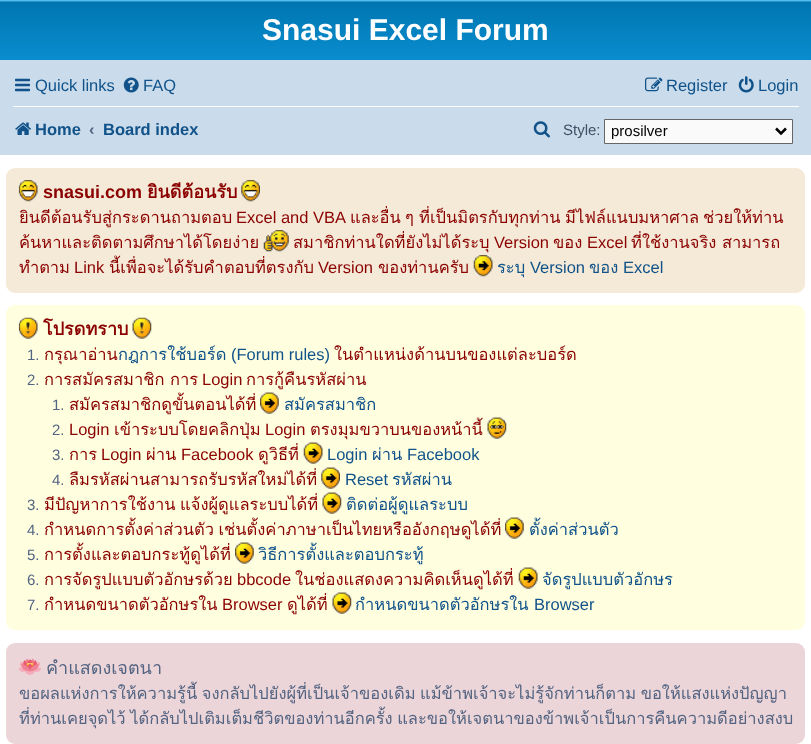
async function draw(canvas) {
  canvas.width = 811
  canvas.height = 744
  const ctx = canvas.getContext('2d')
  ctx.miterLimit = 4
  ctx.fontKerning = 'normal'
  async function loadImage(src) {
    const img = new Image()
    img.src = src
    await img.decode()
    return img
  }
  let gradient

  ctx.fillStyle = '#fff'
  ctx.fillRect(0, 0, 811, 744)
  gradient = ctx.createLinearGradient(406, 0, 406, 115)
  gradient.addColorStop(0, '#6aceff')
  gradient.addColorStop(0.02, '#0076b1')
  gradient.addColorStop(1, '#12a3eb')
  ctx.fillStyle = gradient
  ctx.fillRect(0, 0, 811, 60)
  ctx.font = 'bold 30px Liberation Sans'
  ctx.fillStyle = '#fff'
  ctx.fillText('Snasui Excel Forum', 262, 40)
  ctx.fillStyle = '#cadceb'
  ctx.fillRect(0, 60, 811, 95)
  ctx.drawImage(await loadImage('image0.png'), 15, 78, 15, 14)
  ctx.font = '16.5px Liberation Sans'
  ctx.fillStyle = '#105289'
  ctx.fillText('Quick links', 35, 91)
  ctx.drawImage(await loadImage('image1.png'), 123, 77, 16, 16)
  ctx.fillText('FAQ', 143, 91)
  ctx.drawImage(await loadImage('image2.png'), 645, 77, 18, 15)
  ctx.fillText('Register', 666, 91)
  ctx.drawImage(await loadImage('image3.png'), 738, 76, 16, 17)
  ctx.fillText('Login', 758, 91)
  ctx.fillStyle = '#fff'
  ctx.fillRect(13, 106, 786, 1)
  ctx.drawImage(await loadImage('image4.png'), 15, 122, 16, 13)
  ctx.font = 'bold 16.5px Liberation Sans'
  ctx.fillStyle = '#105289'
  ctx.fillText('Home', 35, 135)
  ctx.fillStyle = '#536482'
  ctx.fillText('‹', 89, 135)
  ctx.fillStyle = '#105289'
  ctx.fillText('Board index', 103, 135)
  ctx.drawImage(await loadImage('image5.png'), 533, 121, 17, 17)
  ctx.font = '15px Liberation Sans'
  ctx.fillStyle = '#425067'
  ctx.fillText('Style:', 563, 135)
  ctx.fillStyle = '#fafafa'
  ctx.beginPath()
  ctx.rect(604.5, 119.5, 188, 24)
  ctx.fill()
  ctx.strokeStyle = '#666'
  ctx.stroke()
  ctx.beginPath()
  ctx.moveTo(776, 128.5)
  ctx.lineTo(781, 133.5)
  ctx.lineTo(786, 128.5)
  ctx.strokeStyle = '#000'
  ctx.lineWidth = 2.5
  ctx.stroke()
  ctx.fillStyle = '#000'
  ctx.fillText('prosilver', 611, 136)
  ctx.fillStyle = '#f5ead7'
  ctx.beginPath()
  ctx.roundRect(6, 168, 799, 125, 9)
  ctx.fill()
  ctx.drawImage(await loadImage('image6.png'), 18, 180, 20, 22)
  ctx.font = 'bold 18px Liberation Sans'
  ctx.fillStyle = '#8b0000'
  ctx.fillText('snasui.com', 43, 198)
  ctx.font = 'bold 18px Loma'
  ctx.fillText('ยินดีต้อนรับ', 147, 198)
  ctx.drawImage(await loadImage('image7.png'), 241, 180, 19, 22)
  ctx.save()
  ctx.beginPath()
  ctx.rect(19, 180, 774, 100)
  ctx.clip()
  ctx.font = '16.5px Loma'
  ctx.fillText('ยินดีต้อนรับสู่กระดานถามตอบ', 19, 223)
  ctx.restore()
  ctx.font = '16.5px Liberation Sans'
  ctx.fillText('Excel and VBA', 236, 223)
  ctx.font = '16.5px Loma'
  ctx.fillText('และอื่น', 350, 223)
  ctx.fillText('ๆ', 405, 223)
  ctx.fillText('ที่เป็นมิตรกับทุกท่าน', 419, 223)
  ctx.fillText('มีไฟล์แนบมหาศาล', 565, 223)
  ctx.fillText('ช่วยให้ท่าน', 703, 223)
  ctx.save()
  ctx.beginPath()
  ctx.rect(19, 180, 774, 100)
  ctx.clip()
  ctx.fillText('ค้นหาและติดตามศึกษาได้โดยง่าย', 19, 248)
  ctx.restore()
  ctx.drawImage(await loadImage('image8.png'), 263, 230, 26, 22)
  ctx.fillText('สมาชิกท่านใดที่ยังไม่ได้ระบุ', 293, 248)
  ctx.font = '16.5px Liberation Sans'
  ctx.fillText('Version', 494, 248)
  ctx.font = '16.5px Loma'
  ctx.fillText('ของ', 553, 248)
  ctx.font = '16.5px Liberation Sans'
  ctx.fillText('Excel', 587, 248)
  ctx.font = '16.5px Loma'
  ctx.fillText('ที่ใช้งานจริง สามารถ', 631, 248)
  ctx.save()
  ctx.beginPath()
  ctx.rect(19, 180, 774, 100)
  ctx.clip()
  ctx.fillText('ทำตาม', 19, 273)
  ctx.restore()
  ctx.font = '16.5px Liberation Sans'
  ctx.fillText('Link', 74, 273)
  ctx.font = '16.5px Loma'
  ctx.fillText('นี้เพื่อจะได้รับคำตอบที่ตรงกับ', 109, 273)
  ctx.font = '16.5px Liberation Sans'
  ctx.fillText('Version', 318, 273)
  ctx.font = '16.5px Loma'
  ctx.fillText('ของท่านครับ', 378, 273)
  ctx.drawImage(await loadImage('image9.png'), 473, 255, 20, 22)
  ctx.fillStyle = '#105289'
  ctx.fillText('ระบุ', 497, 273)
  ctx.font = '16.5px Liberation Sans'
  ctx.fillText('Version', 530, 273)
  ctx.font = '16.5px Loma'
  ctx.fillText('ของ', 589, 273)
  ctx.font = '16.5px Liberation Sans'
  ctx.fillText('Excel', 623, 273)
  ctx.fillStyle = '#ffffe0'
  ctx.beginPath()
  ctx.roundRect(6, 305, 799, 325, 9)
  ctx.fill()
  ctx.drawImage(await loadImage('image10.png'), 18, 317, 20, 22)
  ctx.font = 'bold 18px Loma'
  ctx.fillStyle = '#8b0000'
  ctx.fillText('โปรดทราบ', 43, 335)
  ctx.drawImage(await loadImage('image11.png'), 132, 317, 20, 22)
  ctx.font = '15px Liberation Sans'
  ctx.fillStyle = '#536482'
  ctx.fillText('1.', 27, 360)
  ctx.font = '16.5px Loma'
  ctx.fillStyle = '#8b0000'
  ctx.fillText('กรุณาอ่าน', 44, 360)
  ctx.fillStyle = '#105289'
  ctx.fillText('กฎการใช้บอร์ด', 118, 360)
  ctx.font = '16.5px Liberation Sans'
  ctx.fillText('(Forum rules)', 231, 360)
  ctx.font = '16.5px Loma'
  ctx.fillStyle = '#8b0000'
  ctx.fillText('ในตำแหน่งด้านบนของแต่ละบอร์ด', 334, 360)
  ctx.font = '15px Liberation Sans'
  ctx.fillStyle = '#536482'
  ctx.fillText('2.', 27, 385)
  ctx.font = '16.5px Loma'
  ctx.fillStyle = '#8b0000'
  ctx.fillText('การสมัครสมาชิก การ', 44, 385)
  ctx.font = '16.5px Liberation Sans'
  ctx.fillText('Login', 202, 385)
  ctx.font = '16.5px Loma'
  ctx.fillText('การกู้คืนรหัสผ่าน', 246, 385)
  ctx.font = '15px Liberation Sans'
  ctx.fillStyle = '#536482'
  ctx.fillText('1.', 52, 410)
  ctx.font = '16.5px Loma'
  ctx.fillStyle = '#8b0000'
  ctx.fillText('สมัครสมาชิกดูขั้นตอนได้ที่', 69, 410)
  ctx.drawImage(await loadImage('image12.png'), 260, 392, 19, 22)
  ctx.fillStyle = '#105289'
  ctx.fillText('สมัครสมาชิก', 284, 410)
  ctx.font = '15px Liberation Sans'
  ctx.fillStyle = '#536482'
  ctx.fillText('2.', 52, 435)
  ctx.font = '16.5px Liberation Sans'
  ctx.fillStyle = '#8b0000'
  ctx.fillText('Login', 69, 435)
  ctx.font = '16.5px Loma'
  ctx.fillText('เข้าระบบโดยคลิกปุ่ม', 114, 435)
  ctx.font = '16.5px Liberation Sans'
  ctx.fillText('Login', 265, 435)
  ctx.font = '16.5px Loma'
  ctx.fillText('ตรงมุมขวาบนของหน้านี้', 310, 435)
  ctx.drawImage(await loadImage('image13.png'), 487, 417, 20, 22)
  ctx.font = '15px Liberation Sans'
  ctx.fillStyle = '#536482'
  ctx.fillText('3.', 52, 460)
  ctx.font = '16.5px Loma'
  ctx.fillStyle = '#8b0000'
  ctx.fillText('การ', 69, 460)
  ctx.font = '16.5px Liberation Sans'
  ctx.fillText('Login', 101, 460)
  ctx.font = '16.5px Loma'
  ctx.fillText('ผ่าน', 146, 460)
  ctx.font = '16.5px Liberation Sans'
  ctx.fillText('Facebook', 181, 460)
  ctx.font = '16.5px Loma'
  ctx.fillText('ดูวิธีที่', 258, 460)
  ctx.drawImage(await loadImage('image14.png'), 303, 442, 20, 22)
  ctx.font = '16.5px Liberation Sans'
  ctx.fillStyle = '#105289'
  ctx.fillText('Login', 327, 460)
  ctx.font = '16.5px Loma'
  ctx.fillText('ผ่าน', 372, 460)
  ctx.font = '16.5px Liberation Sans'
  ctx.fillText('Facebook', 407, 460)
  ctx.font = '15px Liberation Sans'
  ctx.fillStyle = '#536482'
  ctx.fillText('4.', 52, 485)
  ctx.font = '16.5px Loma'
  ctx.fillStyle = '#8b0000'
  ctx.fillText('ลืมรหัสผ่านสามารถรับรหัสใหม่ได้ที่', 69, 485)
  ctx.drawImage(await loadImage('image15.png'), 321, 467, 19, 22)
  ctx.font = '16.5px Liberation Sans'
  ctx.fillStyle = '#105289'
  ctx.fillText('Reset', 345, 485)
  ctx.font = '16.5px Loma'
  ctx.fillText('รหัสผ่าน', 392, 485)
  ctx.font = '15px Liberation Sans'
  ctx.fillStyle = '#536482'
  ctx.fillText('3.', 27, 510)
  ctx.wordSpacing = '-1px'
  ctx.font = '16.5px Loma'
  ctx.fillStyle = '#8b0000'
  ctx.fillText('มีปัญหาการใช้งาน แจ้งผู้ดูแลระบบได้ที่', 44, 510)
  ctx.drawImage(await loadImage('image16.png'), 322, 492, 20, 22)
  ctx.wordSpacing = '0px'
  ctx.fillStyle = '#105289'
  ctx.fillText('ติดต่อผู้ดูแลระบบ', 346, 510)
  ctx.font = '15px Liberation Sans'
  ctx.fillStyle = '#536482'
  ctx.fillText('4.', 27, 535)
  ctx.wordSpacing = '-1px'
  ctx.font = '16.5px Loma'
  ctx.fillStyle = '#8b0000'
  ctx.fillText('กำหนดการตั้งค่าส่วนตัว เช่นตั้งค่าภาษาเป็นไทยหรืออังกฤษดูได้ที่', 44, 535)
  ctx.drawImage(await loadImage('image17.png'), 505, 517, 19, 22)
  ctx.wordSpacing = '0px'
  ctx.fillStyle = '#105289'
  ctx.fillText('ตั้งค่าส่วนตัว', 529, 535)
  ctx.font = '15px Liberation Sans'
  ctx.fillStyle = '#536482'
  ctx.fillText('5.', 27, 560)
  ctx.font = '16.5px Loma'
  ctx.fillStyle = '#8b0000'
  ctx.fillText('การตั้งและตอบกระทู้ดูได้ที่', 44, 560)
  ctx.drawImage(await loadImage('image12.png'), 235, 542, 19, 22)
  ctx.fillStyle = '#105289'
  ctx.fillText('วิธีการตั้งและตอบกระทู้', 258, 560)
  ctx.font = '15px Liberation Sans'
  ctx.fillStyle = '#536482'
  ctx.fillText('6.', 27, 585)
  ctx.font = '16.5px Loma'
  ctx.fillStyle = '#8b0000'
  ctx.fillText('การจัดรูปแบบตัวอักษรด้วย', 44, 585)
  ctx.font = '16.5px Liberation Sans'
  ctx.fillText('bbcode', 237, 585)
  ctx.font = '16.5px Loma'
  ctx.fillText('ในช่องแสดงความคิดเห็นดูได้ที่', 295, 585)
  ctx.drawImage(await loadImage('image18.png'), 518, 567, 20, 22)
  ctx.fillStyle = '#105289'
  ctx.fillText('จัดรูปแบบตัวอักษร', 542, 585)
  ctx.font = '15px Liberation Sans'
  ctx.fillStyle = '#536482'
  ctx.fillText('7.', 27, 610)
  ctx.font = '16.5px Loma'
  ctx.fillStyle = '#8b0000'
  ctx.fillText('กำหนดขนาดตัวอักษรใน', 44, 610)
  ctx.font = '16.5px Liberation Sans'
  ctx.fillText('Browser', 222, 610)
  ctx.font = '16.5px Loma'
  ctx.fillText('ดูได้ที่', 287, 610)
  ctx.drawImage(await loadImage('image16.png'), 332, 592, 20, 22)
  ctx.fillStyle = '#105289'
  ctx.fillText('กำหนดขนาดตัวอักษรใน', 355, 610)
  ctx.font = '16.5px Liberation Sans'
  ctx.fillText('Browser', 534, 610)
  ctx.fillStyle = '#ecd5d8'
  ctx.beginPath()
  ctx.roundRect(6, 643, 799, 101, 9)
  ctx.fill()
  ctx.drawImage(await loadImage('image19.png'), 19, 658, 22, 17)
  ctx.font = '18px Loma'
  ctx.fillStyle = '#536482'
  ctx.fillText('คำแสดงเจตนา', 46, 674)
  ctx.wordSpacing = '-1px'
  ctx.font = '16.5px Loma'
  ctx.fillText('ขอผลแห่งการให้ความรู้นี้ จงกลับไปยังผู้ที่เป็นเจ้าของเดิม แม้ข้าพเจ้าจะไม่รู้จักท่านก็ตาม ขอให้แสงแห่งปัญญา', 19, 699)
  ctx.save()
  ctx.beginPath()
  ctx.rect(19, 655, 774, 76)
  ctx.clip()
  ctx.fillText('ที่ท่านเคยจุดไว้ ได้กลับไปเติมเต็มชีวิตของท่านอีกครั้ง และขอให้เจตนาของข้าพเจ้าเป็นการคืนความดีอย่างสงบ', 19, 724)
  ctx.restore()
}

draw(document.querySelector('canvas'))
